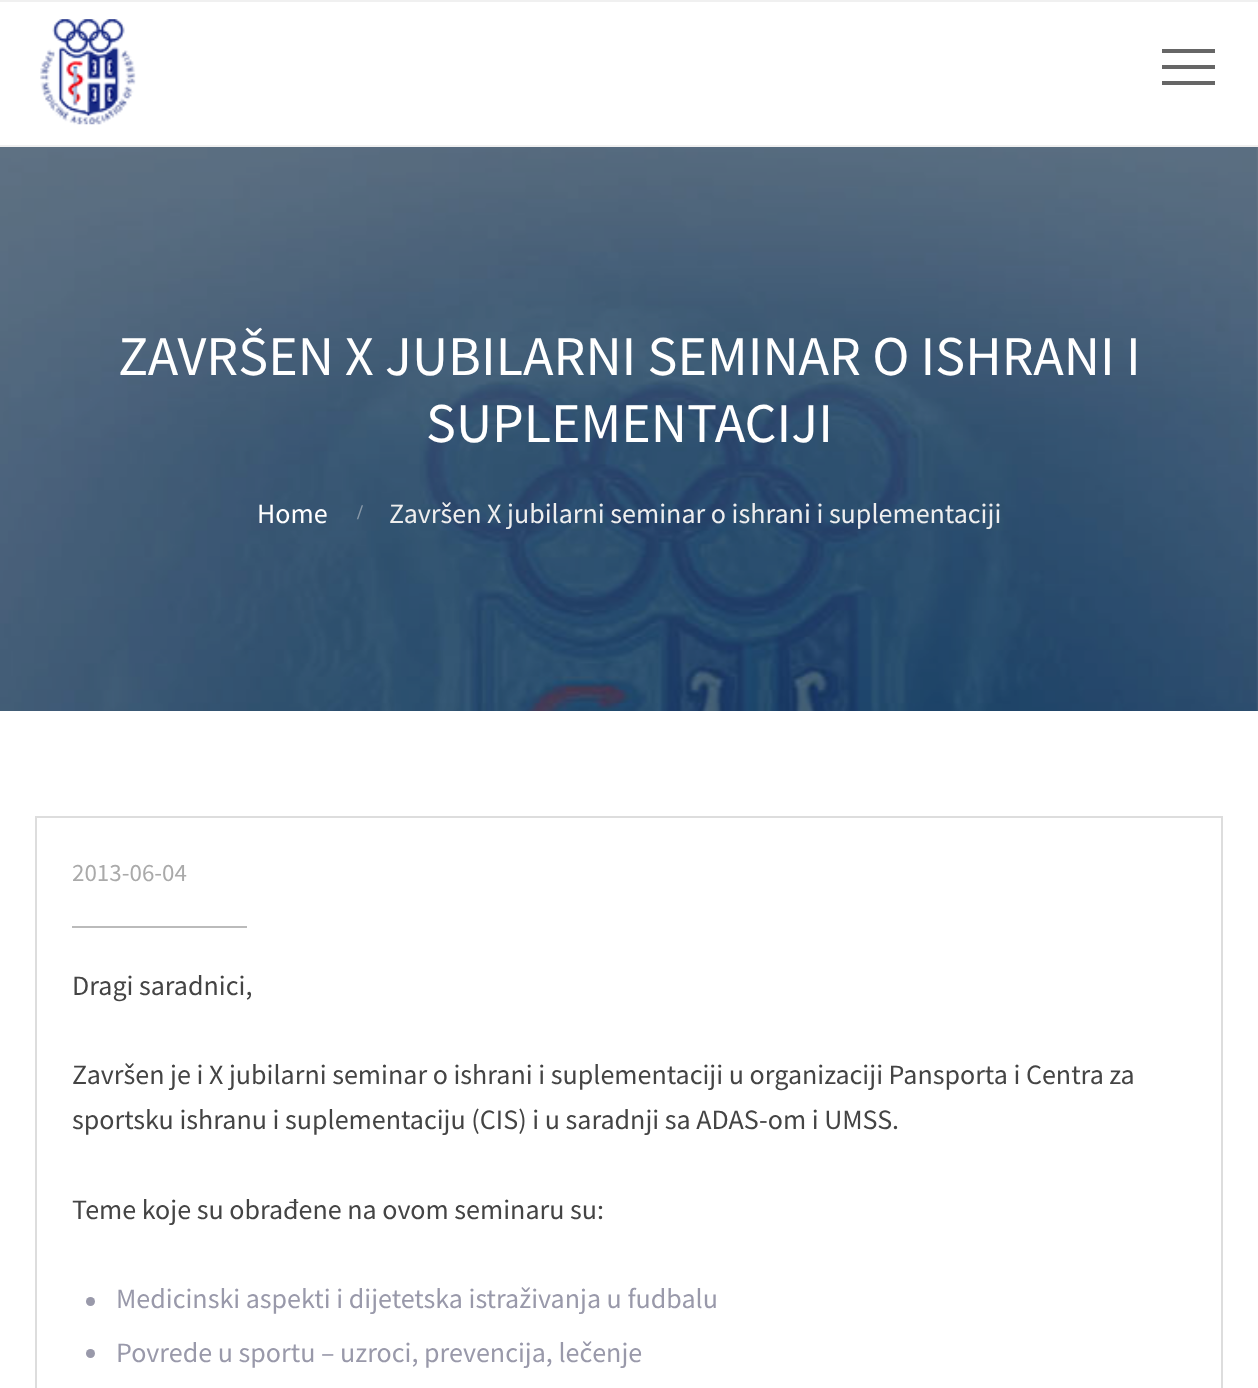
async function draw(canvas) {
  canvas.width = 1258
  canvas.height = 1388
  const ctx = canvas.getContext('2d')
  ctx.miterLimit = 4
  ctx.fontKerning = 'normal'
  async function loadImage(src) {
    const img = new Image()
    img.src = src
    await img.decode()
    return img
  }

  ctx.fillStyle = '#fff'
  ctx.fillRect(0, 0, 1258, 1388)
  ctx.drawImage(await loadImage('image0.png'), 0, 147, 1258, 564)
  ctx.fillStyle = '#f0f0f0'
  ctx.fillRect(0, 0, 1258, 2)
  ctx.fillRect(0, 145, 1258, 2)
  ctx.drawImage(await loadImage('image1.png'), 40, 19, 96, 106)
  ctx.fillStyle = '#666'
  ctx.fillRect(1162, 49, 53, 4)
  ctx.fillRect(1162, 81, 53, 4)
  ctx.fillRect(1162, 65, 53, 4)
  ctx.fillStyle = '#00000066'
  ctx.fillRect(0, 147, 1258, 564)
  ctx.font = '56px Source Sans Pro'
  ctx.fillStyle = '#fff'
  ctx.fillText('ZAVRŠEN X JUBILARNI SEMINAR O ISHRANI I', 118, 375)
  ctx.fillText('SUPLEMENTACIJI', 426, 442)
  ctx.font = '28px Source Sans Pro'
  ctx.fillText('Home', 257, 523)
  ctx.font = 'bold 21px Liberation Serif'
  ctx.fillStyle = '#8999a8'
  ctx.fillText('/', 357, 519)
  ctx.font = '28px Source Sans Pro'
  ctx.fillStyle = '#eee'
  ctx.fillText('Završen X jubilarni seminar o ishrani i suplementaciji', 389, 523)
  ctx.strokeStyle = '#ddd'
  ctx.lineWidth = 2
  ctx.strokeRect(36, 817, 1186, 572)
  ctx.font = '25px Source Sans Pro'
  ctx.fillStyle = '#aaa'
  ctx.fillText('2013-06-04', 72, 881)
  ctx.fillStyle = '#bbb'
  ctx.fillRect(72, 926, 175, 2)
  ctx.font = '28px Source Sans Pro'
  ctx.fillStyle = '#444'
  ctx.fillText('Dragi saradnici,', 72, 995)
  ctx.fillText('Završen je i X jubilarni seminar o ishrani i suplementaciji u organizaciji Pansporta i Centra za', 72, 1084)
  ctx.fillText('sportsku ishranu i suplementaciju (CIS) i u saradnji sa ADAS-om i UMSS.', 72, 1129)
  ctx.fillText('Teme koje su obrađene na ovom seminaru su:', 72, 1219)
  ctx.fillStyle = '#99a'
  ctx.beginPath()
  ctx.arc(90.5, 1301.5, 4.5, 0, 2 * Math.PI)
  ctx.fill()
  ctx.fillText('Medicinski aspekti i dijetetska istraživanja u fudbalu', 116, 1308)
  ctx.beginPath()
  ctx.arc(90.5, 1353.5, 4.5, 0, 2 * Math.PI)
  ctx.fill()
  ctx.fillText('Povrede u sportu – uzroci, prevencija, lečenje', 116, 1362)
}

draw(document.querySelector('canvas'))
